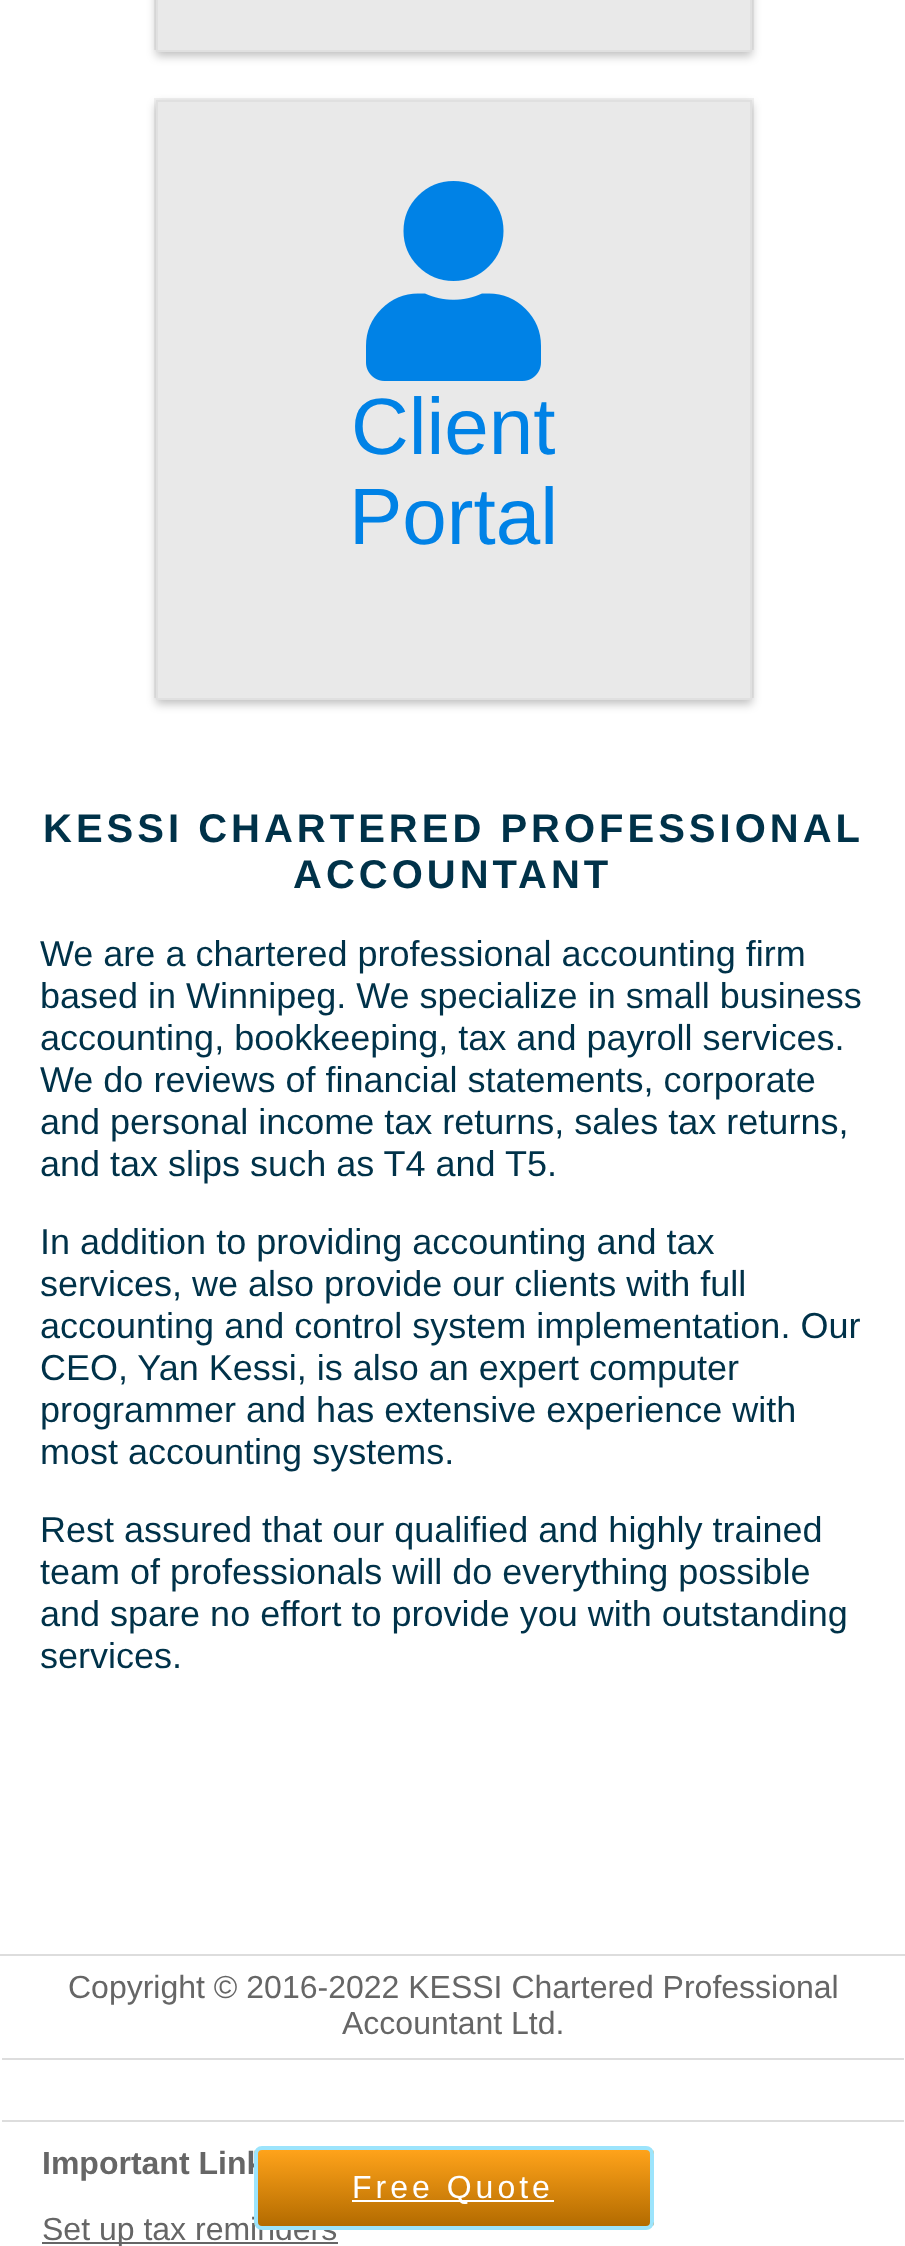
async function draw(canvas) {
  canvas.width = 905
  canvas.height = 2246
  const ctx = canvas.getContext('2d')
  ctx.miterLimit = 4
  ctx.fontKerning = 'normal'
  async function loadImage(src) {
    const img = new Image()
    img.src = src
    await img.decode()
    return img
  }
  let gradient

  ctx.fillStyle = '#fff'
  ctx.fillRect(0, 0, 905, 2246)
  ctx.strokeStyle = '#f1f1f1'
  ctx.lineWidth = 2
  ctx.strokeRect(155, -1, 598, 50)
  ctx.fillStyle = '#00000040'
  ctx.filter = 'blur(5px)'
  ctx.beginPath()
  ctx.rect(156, -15, 596, 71)
  ctx.fill()
  ctx.filter = 'none'
  ctx.fillStyle = '#e9e9e9'
  ctx.beginPath()
  ctx.rect(157, -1, 594, 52)
  ctx.fill()
  ctx.strokeStyle = '#e0e0e0'
  ctx.stroke()
  ctx.strokeStyle = '#f1f1f1'
  ctx.strokeRect(155, 99, 598, 598)
  ctx.fillStyle = '#00000040'
  ctx.filter = 'blur(5px)'
  ctx.beginPath()
  ctx.rect(156, 104, 596, 600)
  ctx.fill()
  ctx.filter = 'none'
  ctx.fillStyle = '#e9e9e9'
  ctx.beginPath()
  ctx.rect(157, 101, 594, 598)
  ctx.fill()
  ctx.strokeStyle = '#e0e0e0'
  ctx.stroke()
  ctx.drawImage(await loadImage('image0.png'), 366, 181, 175, 200)
  ctx.font = '80px Liberation Sans'
  ctx.fillStyle = '#0082e6'
  ctx.fillText('Client', 351, 454)
  ctx.fillText('Portal', 349, 544)
  ctx.letterSpacing = '4px'
  ctx.font = 'bold 40px Liberation Sans'
  ctx.fillStyle = '#003249'
  ctx.fillText('KESSI CHARTERED PROFESSIONAL', 43, 842)
  ctx.fillText('ACCOUNTANT', 293, 888)
  ctx.letterSpacing = '0px'
  ctx.font = '36px Liberation Sans'
  ctx.fillText('We are a chartered professional accounting firm', 40, 966)
  ctx.fillText('based in Winnipeg. We specialize in small business', 40, 1008)
  ctx.fillText('accounting, bookkeeping, tax and payroll services.', 40, 1050)
  ctx.fillText('We do reviews of financial statements, corporate', 40, 1092)
  ctx.fillText('and personal income tax returns, sales tax returns,', 40, 1134)
  ctx.fillText('and tax slips such as T4 and T5.', 40, 1176)
  ctx.fillText('In addition to providing accounting and tax', 40, 1254)
  ctx.fillText('services, we also provide our clients with full', 40, 1296)
  ctx.fillText('accounting and control system implementation. Our', 40, 1338)
  ctx.fillText('CEO, Yan Kessi, is also an expert computer', 40, 1380)
  ctx.fillText('programmer and has extensive experience with', 40, 1422)
  ctx.fillText('most accounting systems.', 40, 1464)
  ctx.fillText('Rest assured that our qualified and highly trained', 40, 1542)
  ctx.fillText('team of professionals will do everything possible', 40, 1584)
  ctx.fillText('and spare no effort to provide you with outstanding', 40, 1626)
  ctx.fillText('services.', 40, 1668)
  ctx.fillStyle = '#ddd'
  ctx.fillRect(0, 1954, 905, 2)
  ctx.font = '32px Liberation Sans'
  ctx.fillStyle = '#666'
  ctx.fillText('Copyright © 2016-2022 KESSI Chartered Professional', 68, 1998)
  ctx.fillText('Accountant Ltd.', 342, 2034)
  ctx.fillStyle = '#ddd'
  ctx.fillRect(2, 2058, 902, 2)
  ctx.fillRect(2, 2120, 902, 2)
  ctx.font = 'bold 32px Liberation Sans'
  ctx.fillStyle = '#666'
  ctx.fillText('Important Link', 42, 2174)
  ctx.fillRect(42, 2242, 296, 2)
  ctx.font = '32px Liberation Sans'
  ctx.fillText('Set up tax reminders', 42, 2240)
  ctx.save()
  ctx.beginPath()
  ctx.roundRect(254, 2146, 400, 84, 8)
  ctx.clip()
  gradient = ctx.createLinearGradient(454, 2150, 454, 2226)
  gradient.addColorStop(0, '#ffa31a')
  gradient.addColorStop(1, '#b36b00')
  ctx.fillStyle = gradient
  ctx.fillRect(254, 2150, 400, 76)
  ctx.restore()
  ctx.beginPath()
  ctx.roundRect(256, 2148, 396, 80, 6)
  ctx.strokeStyle = '#9ce4fc'
  ctx.lineWidth = 4
  ctx.stroke()
  ctx.fillStyle = '#fff'
  ctx.fillRect(352, 2200, 202, 2)
  ctx.letterSpacing = '4px'
  ctx.fillText('Free Quote', 352, 2198)
}

draw(document.querySelector('canvas'))
